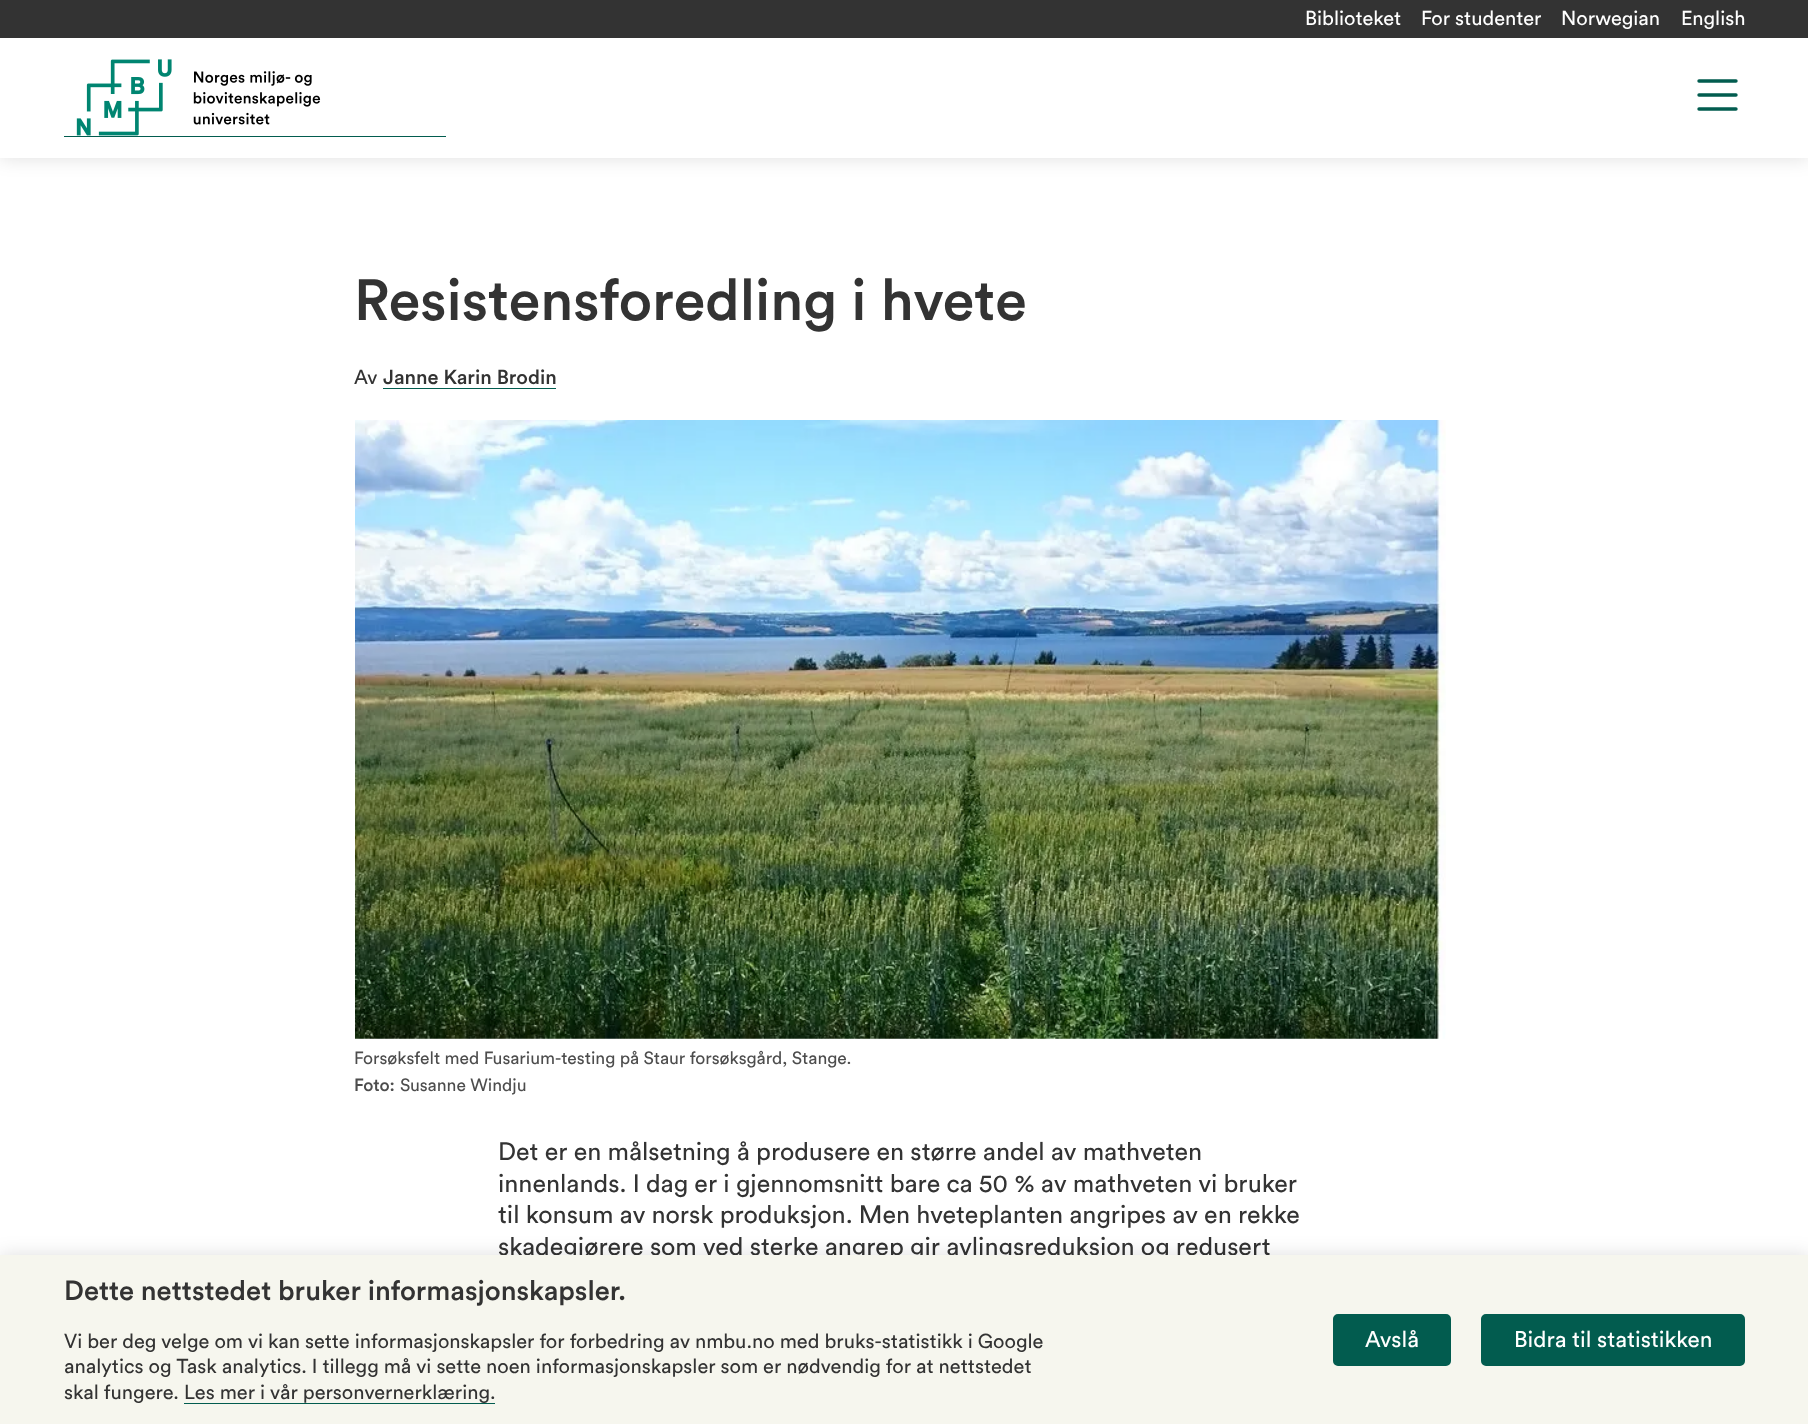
async function draw(canvas) {
  canvas.width = 1808
  canvas.height = 1424
  const ctx = canvas.getContext('2d')
  ctx.miterLimit = 4
  ctx.fontKerning = 'normal'
  async function loadImage(src) {
    const img = new Image()
    img.src = src
    await img.decode()
    return img
  }

  ctx.fillStyle = '#fff'
  ctx.fillRect(0, 0, 1808, 1424)
  ctx.fillStyle = '#00000021'
  ctx.filter = 'blur(9.5px)'
  ctx.beginPath()
  ctx.rect(0, 0, 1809, 158)
  ctx.fill()
  ctx.filter = 'none'
  ctx.fillStyle = '#fff'
  ctx.fillRect(0, 38, 1808, 120)
  ctx.fillStyle = '#333'
  ctx.fillRect(0, 0, 1808, 38)
  ctx.font = '20px Circular'
  ctx.fillStyle = '#fff'
  ctx.fillText('Biblioteket', 1305, 25)
  ctx.fillText('For studenter', 1421, 25)
  ctx.fillText('Norwegian', 1561, 25)
  ctx.fillText('English', 1681, 25)
  ctx.fillStyle = '#025c4f'
  ctx.fillRect(64, 136, 382, 1)
  ctx.drawImage(await loadImage('image0.png'), 76, 59, 245, 77)
  ctx.beginPath()
  ctx.moveTo(1699, 81)
  ctx.lineTo(1736, 81)
  ctx.moveTo(1699, 95)
  ctx.lineTo(1736, 95)
  ctx.moveTo(1699, 109)
  ctx.lineTo(1736, 109)
  ctx.strokeStyle = '#025c4f'
  ctx.lineWidth = 3.4
  ctx.lineCap = 'round'
  ctx.lineJoin = 'round'
  ctx.stroke()
  ctx.font = '500 57.5px Circular'
  ctx.fillStyle = '#333'
  ctx.fillText('Resistensforedling i hvete', 354, 320)
  ctx.font = '20px Circular'
  ctx.fillText('Av', 354, 384)
  ctx.font = '500 20px Circular'
  ctx.fillText('Janne Karin Brodin', 383, 384)
  ctx.fillStyle = '#025c4f'
  ctx.fillRect(383, 388, 173, 1)
  ctx.drawImage(await loadImage('image1.png'), 355, 420, 1091, 619)
  ctx.font = '17.5px Circular'
  ctx.fillStyle = '#4d4d4d'
  ctx.fillText('Forsøksfelt med Fusarium-testing på Staur forsøksgård, Stange.', 354, 1064)
  ctx.font = '500 17.5px Circular'
  ctx.fillText('Foto:', 354, 1091)
  ctx.font = '17.5px Circular'
  ctx.fillText('Susanne Windju', 400, 1091)
  ctx.font = '25px Circular'
  ctx.fillStyle = '#333'
  ctx.fillText('Det er en målsetning å produsere en større andel av mathveten', 498, 1160)
  ctx.fillText('innenlands. I dag er i gjennomsnitt bare ca 50 % av mathveten vi bruker', 498, 1192)
  ctx.fillText('til konsum av norsk produksjon. Men hveteplanten angripes av en rekke', 498, 1223)
  ctx.fillText('skadegjørere som ved sterke angrep gir avlingsreduksjon og redusert', 498, 1255)
  ctx.fillStyle = '#00000021'
  ctx.filter = 'blur(9.5px)'
  ctx.beginPath()
  ctx.rect(0, 1255, 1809, 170)
  ctx.fill()
  ctx.filter = 'none'
  ctx.fillStyle = '#f6f6ee'
  ctx.fillRect(0, 1255, 1808, 169)
  ctx.font = '500 27.5px Circular'
  ctx.fillStyle = '#333'
  ctx.fillText('Dette nettstedet bruker informasjonskapsler.', 64, 1300)
  ctx.font = '20px Circular'
  ctx.fillText('Vi ber deg velge om vi kan sette informasjonskapsler for forbedring av nmbu.no med bruks-statistikk i Google', 64, 1348)
  ctx.fillText('analytics og Task analytics. I tillegg må vi sette noen informasjonskapsler som er nødvendig for at nettstedet', 64, 1373)
  ctx.fillText('skal fungere.', 64, 1399)
  ctx.fillStyle = '#025c4f'
  ctx.fillRect(184, 1403, 311, 1)
  ctx.fillStyle = '#333'
  ctx.fillText('Les mer i vår personvernerklæring.', 184, 1399)
  ctx.fillStyle = '#025c4f'
  ctx.beginPath()
  ctx.roundRect(1334.5, 1315.5, 115, 49, 3.5)
  ctx.fill()
  ctx.lineWidth = 3
  ctx.lineJoin = 'miter'
  ctx.stroke()
  ctx.font = '22.5px Circular'
  ctx.fillStyle = '#fff'
  ctx.fillText('Avslå', 1365, 1347)
  ctx.fillStyle = '#025c4f'
  ctx.beginPath()
  ctx.roundRect(1482.5, 1315.5, 261, 49, 3.5)
  ctx.fill()
  ctx.stroke()
  ctx.fillStyle = '#fff'
  ctx.fillText('Bidra til statistikken', 1514, 1347)
}

draw(document.querySelector('canvas'))
